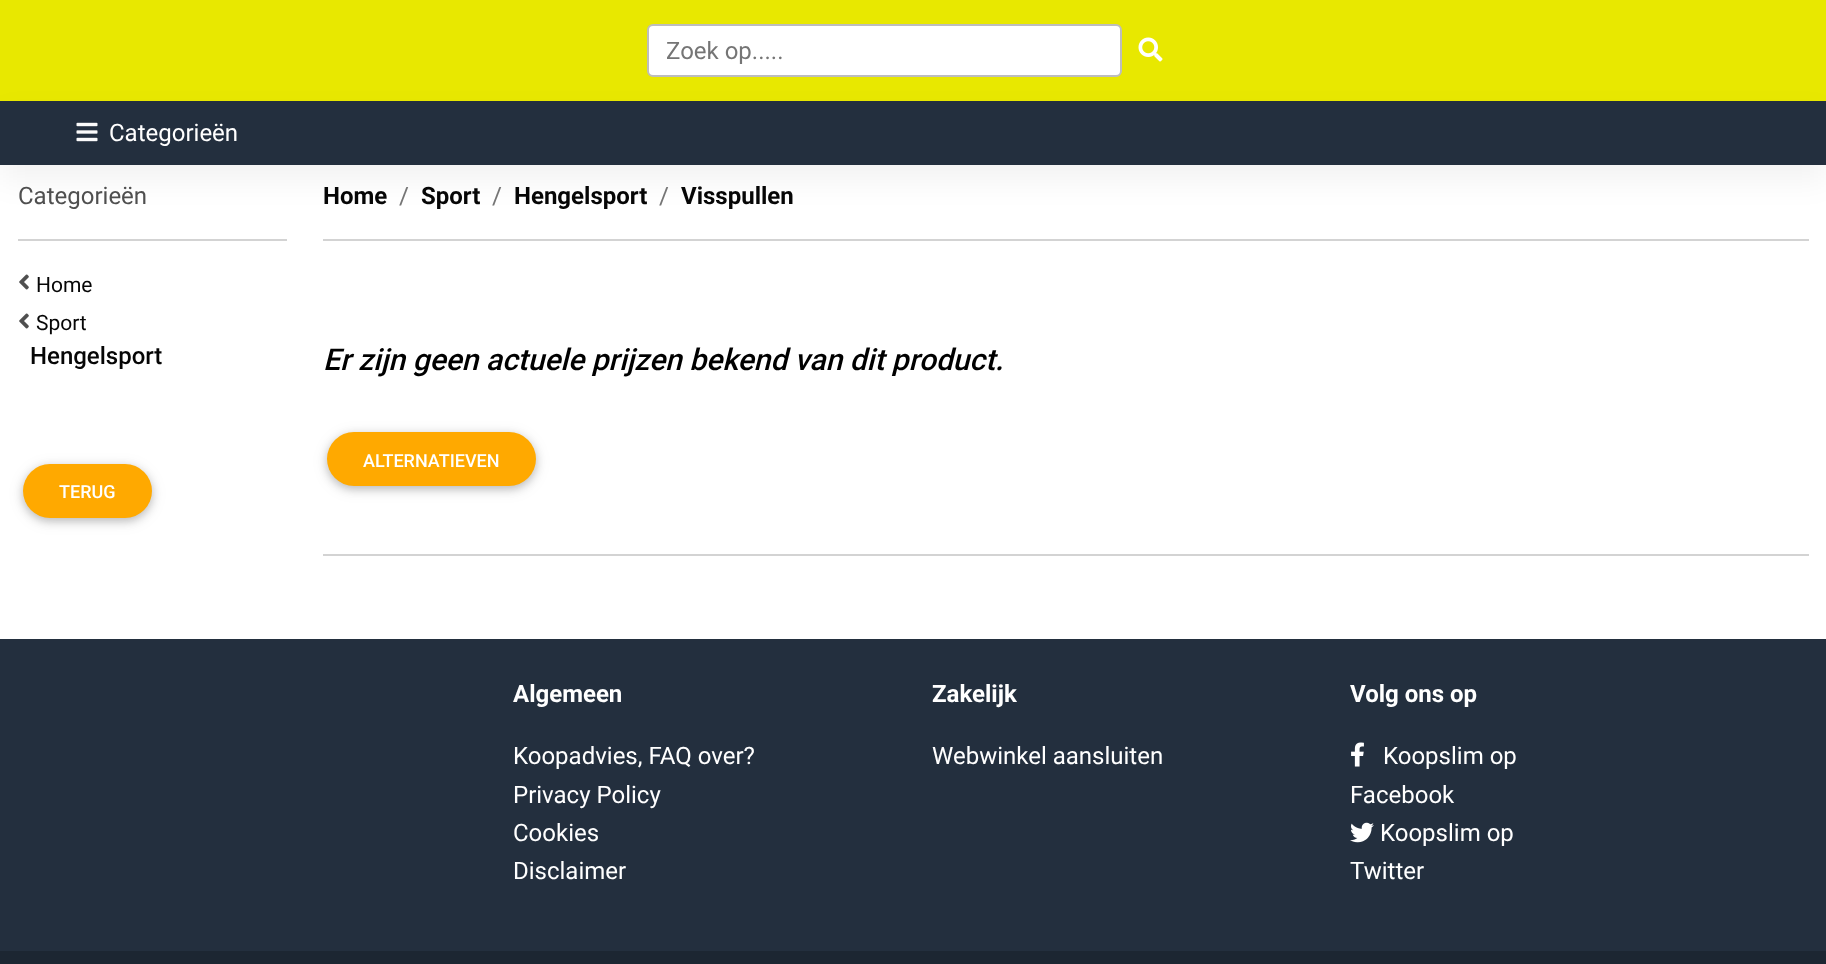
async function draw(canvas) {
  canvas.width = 1826
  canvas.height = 964
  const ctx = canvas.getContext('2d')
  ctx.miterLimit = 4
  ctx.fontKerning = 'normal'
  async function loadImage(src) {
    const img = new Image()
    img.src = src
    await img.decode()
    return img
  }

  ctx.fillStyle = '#fff'
  ctx.fillRect(0, 0, 1826, 964)
  ctx.fillStyle = '#e8e800'
  ctx.fillRect(0, 0, 1826, 101)
  ctx.fillStyle = '#fff'
  ctx.beginPath()
  ctx.roundRect(648, 25, 473, 51, 5)
  ctx.fill()
  ctx.strokeStyle = '#bdbdbd'
  ctx.lineWidth = 2
  ctx.stroke()
  ctx.font = '24px Roboto'
  ctx.fillStyle = '#757575'
  ctx.fillText('Zoek op.....', 666, 59)
  ctx.drawImage(await loadImage('image0.png'), 1138, 37, 25, 25)
  ctx.fillStyle = '#0000000d'
  ctx.filter = 'blur(15px)'
  ctx.beginPath()
  ctx.rect(0, 116, 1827, 64)
  ctx.fill()
  ctx.filter = 'none'
  ctx.fillStyle = '#232f3e'
  ctx.fillRect(0, 101, 1826, 64)
  ctx.drawImage(await loadImage('image1.png'), 76, 122, 22, 20)
  ctx.fillStyle = '#fff'
  ctx.fillText('Categorieën', 109, 141)
  ctx.fillStyle = '#4f4f4f'
  ctx.fillText('Categorieën', 18, 204)
  ctx.fillStyle = '#d3d3d3'
  ctx.fillRect(18, 239, 269, 2)
  ctx.drawImage(await loadImage('image2.png'), 19, 274, 10, 16)
  ctx.font = '21px Roboto'
  ctx.fillStyle = '#060606'
  ctx.fillText('Home', 36, 292)
  ctx.drawImage(await loadImage('image2.png'), 19, 313, 10, 16)
  ctx.fillText('Sport', 36, 330)
  ctx.font = '500 24px Roboto'
  ctx.fillText('Hengelsport', 30, 364)
  ctx.fillStyle = '#0000001a'
  ctx.filter = 'blur(7.5px)'
  ctx.beginPath()
  ctx.roundRect(23, 467, 129, 54, 27)
  ctx.fill()
  ctx.filter = 'none'
  ctx.fillStyle = '#00000033'
  ctx.filter = 'blur(4px)'
  ctx.beginPath()
  ctx.roundRect(23, 467, 129, 54, 27)
  ctx.fill()
  ctx.filter = 'none'
  ctx.fillStyle = '#ffa900'
  ctx.beginPath()
  ctx.roundRect(23, 464, 129, 54, 27)
  ctx.fill()
  ctx.font = '500 18px Roboto'
  ctx.fillStyle = '#fff'
  ctx.fillText('TERUG', 59, 498)
  ctx.font = 'bold 24px Roboto'
  ctx.fillStyle = '#060606'
  ctx.fillText('Home', 323, 204)
  ctx.font = '24px Roboto'
  ctx.fillStyle = '#757575'
  ctx.fillText('/', 399, 204)
  ctx.font = 'bold 24px Roboto'
  ctx.fillStyle = '#060606'
  ctx.fillText('Sport', 421, 204)
  ctx.font = '24px Roboto'
  ctx.fillStyle = '#757575'
  ctx.fillText('/', 492, 204)
  ctx.font = 'bold 24px Roboto'
  ctx.fillStyle = '#060606'
  ctx.fillText('Hengelsport', 514, 204)
  ctx.font = '24px Roboto'
  ctx.fillStyle = '#757575'
  ctx.fillText('/', 659, 204)
  ctx.font = 'bold 24px Roboto'
  ctx.fillStyle = '#060606'
  ctx.fillText('Visspullen', 681, 204)
  ctx.fillStyle = '#d3d3d3'
  ctx.fillRect(323, 239, 1486, 2)
  ctx.font = 'italic 500 30px Roboto'
  ctx.fillStyle = '#000'
  ctx.fillText('Er zijn geen actuele prijzen bekend van dit product.', 323, 370)
  ctx.fillStyle = '#0000001a'
  ctx.filter = 'blur(7.5px)'
  ctx.beginPath()
  ctx.roundRect(327, 435, 209, 54, 27)
  ctx.fill()
  ctx.filter = 'none'
  ctx.fillStyle = '#00000033'
  ctx.filter = 'blur(4px)'
  ctx.beginPath()
  ctx.roundRect(327, 435, 209, 54, 27)
  ctx.fill()
  ctx.filter = 'none'
  ctx.fillStyle = '#ffa900'
  ctx.beginPath()
  ctx.roundRect(327, 432, 209, 54, 27)
  ctx.fill()
  ctx.font = '500 18px Roboto'
  ctx.fillStyle = '#fff'
  ctx.fillText('ALTERNATIEVEN', 363, 467)
  ctx.fillStyle = '#d3d3d3'
  ctx.fillRect(323, 554, 1486, 2)
  ctx.fillStyle = '#232f3e'
  ctx.fillRect(0, 639, 1826, 312)
  ctx.font = 'bold 24px Roboto'
  ctx.fillStyle = '#fff'
  ctx.fillText('Algemeen', 513, 702)
  ctx.font = '24px Roboto'
  ctx.fillText('Koopadvies, FAQ over?', 513, 764)
  ctx.fillText('Privacy Policy', 513, 803)
  ctx.fillText('Cookies', 513, 841)
  ctx.fillText('Disclaimer', 513, 879)
  ctx.font = 'bold 24px Roboto'
  ctx.fillText('Zakelijk', 932, 702)
  ctx.font = '24px Roboto'
  ctx.fillText('Webwinkel aansluiten', 932, 764)
  ctx.font = 'bold 24px Roboto'
  ctx.fillText('Volg ons op', 1350, 702)
  ctx.drawImage(await loadImage('image3.png'), 1351, 742, 13, 25)
  ctx.font = '24px Roboto'
  ctx.fillText('Koopslim op', 1383, 764)
  ctx.fillText('Facebook', 1350, 803)
  ctx.drawImage(await loadImage('image4.png'), 1350, 822, 24, 21)
  ctx.fillText('Koopslim op', 1380, 841)
  ctx.fillText('Twitter', 1350, 879)
  ctx.fillStyle = '#1c2632'
  ctx.fillRect(0, 951, 1826, 13)
}

draw(document.querySelector('canvas'))
